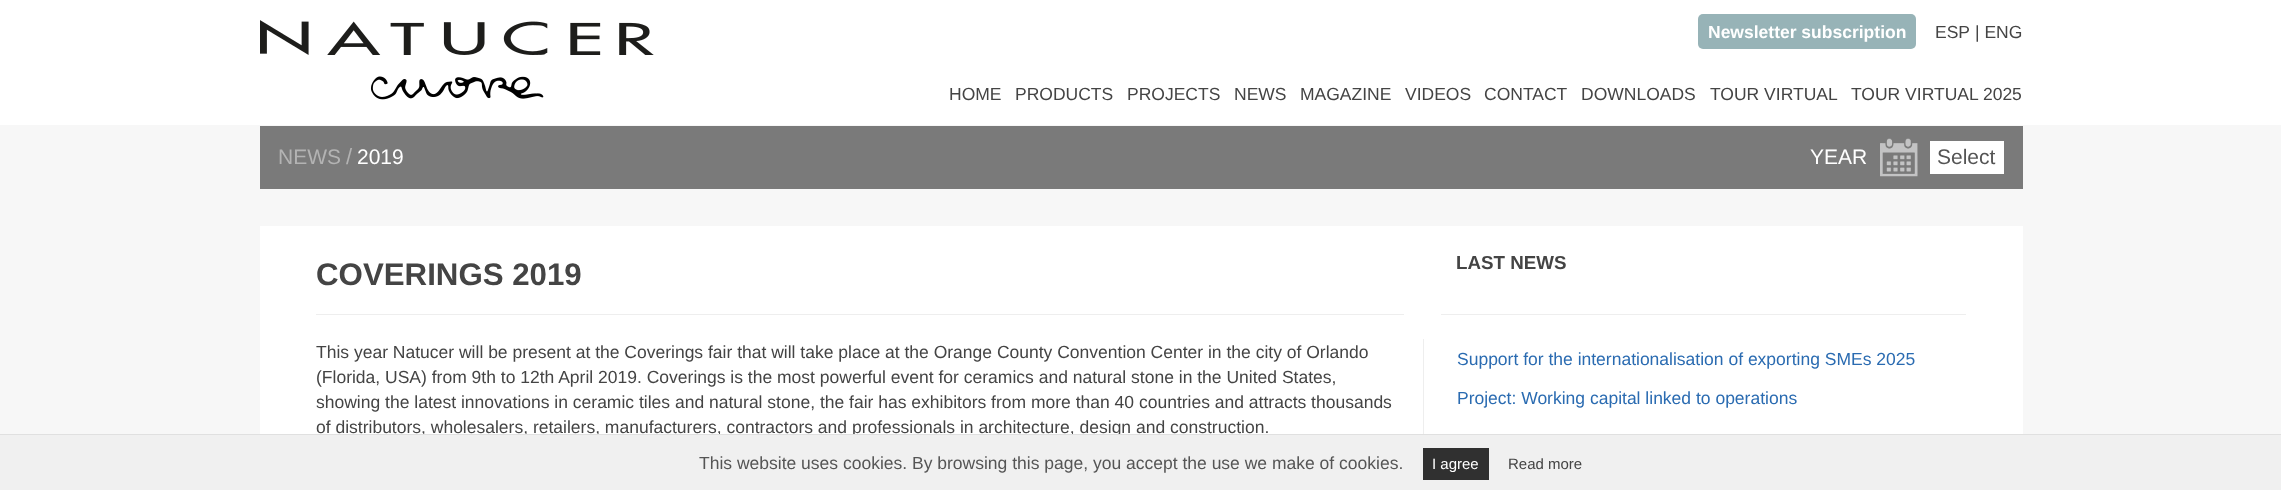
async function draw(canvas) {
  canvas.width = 2281
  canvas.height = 490
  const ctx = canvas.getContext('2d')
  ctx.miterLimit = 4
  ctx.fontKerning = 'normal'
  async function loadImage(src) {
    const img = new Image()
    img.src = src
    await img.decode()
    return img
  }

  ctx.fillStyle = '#f7f7f7'
  ctx.fillRect(0, 0, 2281, 490)
  ctx.fillStyle = '#fff'
  ctx.fillRect(0, 0, 2281, 125)
  ctx.drawImage(await loadImage('image0.png'), 260, 20, 394, 80)
  ctx.fillStyle = '#97b3b7'
  ctx.beginPath()
  ctx.roundRect(1698, 14, 218, 35, 5)
  ctx.fill()
  ctx.font = 'bold 17.5px Liberation Sans'
  ctx.fillStyle = '#fff'
  ctx.fillText('Newsletter subscription', 1708, 38)
  ctx.font = '17.5px Liberation Sans'
  ctx.fillStyle = '#444'
  ctx.fillText('ESP', 1935, 38)
  ctx.fillText('| ENG', 1975, 38)
  ctx.fillText('HOME', 949, 100)
  ctx.fillText('PRODUCTS', 1015, 100)
  ctx.fillText('PROJECTS', 1127, 100)
  ctx.fillText('NEWS', 1234, 100)
  ctx.fillText('MAGAZINE', 1300, 100)
  ctx.fillText('VIDEOS', 1405, 100)
  ctx.fillText('CONTACT', 1484, 100)
  ctx.fillText('DOWNLOADS', 1581, 100)
  ctx.fillText('TOUR VIRTUAL', 1710, 100)
  ctx.fillText('TOUR VIRTUAL 2025', 1851, 100)
  ctx.fillStyle = '#7a7a7a'
  ctx.fillRect(260, 126, 1763, 63)
  ctx.font = '21px Liberation Sans'
  ctx.fillStyle = '#b3b3b3'
  ctx.fillText('NEWS', 278, 164)
  ctx.font = '22px Liberation Sans'
  ctx.fillText('/', 346, 164)
  ctx.font = '21px Liberation Sans'
  ctx.fillStyle = '#fff'
  ctx.fillText('2019', 357, 164)
  ctx.fillText('YEAR', 1810, 164)
  ctx.drawImage(await loadImage('image1.png'), 1880, 138, 38, 39)
  ctx.fillRect(1930, 141, 74, 33)
  ctx.fillStyle = '#555'
  ctx.fillText('Select', 1937, 164)
  ctx.fillStyle = '#fff'
  ctx.fillRect(260, 226, 1763, 208)
  ctx.font = 'bold 31.25px Liberation Sans'
  ctx.fillStyle = '#444'
  ctx.fillText('COVERINGS 2019', 316, 285)
  ctx.font = 'bold 18.75px Liberation Sans'
  ctx.fillText('LAST NEWS', 1456, 269)
  ctx.fillStyle = '#eee'
  ctx.fillRect(316, 314, 1088, 1)
  ctx.fillRect(1441, 314, 525, 1)
  ctx.font = '17.5px Liberation Sans'
  ctx.fillStyle = '#444'
  ctx.fillText('This year Natucer will be present at the Coverings fair that will take place at the Orange County Convention Center in the city of Orlando', 316, 358)
  ctx.fillText('(Florida, USA) from 9th to 12th April 2019. Coverings is the most powerful event for ceramics and natural stone in the United States,', 316, 383)
  ctx.fillText('showing the latest innovations in ceramic tiles and natural stone, the fair has exhibitors from more than 40 countries and attracts thousands', 316, 408)
  ctx.fillText('of distributors, wholesalers, retailers, manufacturers, contractors and professionals in architecture, design and construction.', 316, 433)
  ctx.fillStyle = '#eee'
  ctx.fillRect(1423, 339, 1, 95)
  ctx.fillStyle = '#2a6bb1'
  ctx.fillText('Support for the internationalisation of exporting SMEs 2025', 1457, 365)
  ctx.fillText('Project: Working capital linked to operations', 1457, 404)
  ctx.fillStyle = '#f0f0f0'
  ctx.fillRect(0, 435, 2281, 55)
  ctx.fillStyle = '#e0e0e0'
  ctx.fillRect(0, 434, 2281, 1)
  ctx.fillStyle = '#555'
  ctx.fillText('This website uses cookies. By browsing this page, you accept the use we make of cookies.', 699, 469)
  ctx.fillStyle = '#303030'
  ctx.fillRect(1423, 448, 66, 32)
  ctx.font = '15px Liberation Sans'
  ctx.fillStyle = '#fff'
  ctx.fillText('I agree', 1432, 469)
  ctx.fillStyle = '#444'
  ctx.fillText('Read more', 1508, 469)
}

draw(document.querySelector('canvas'))
